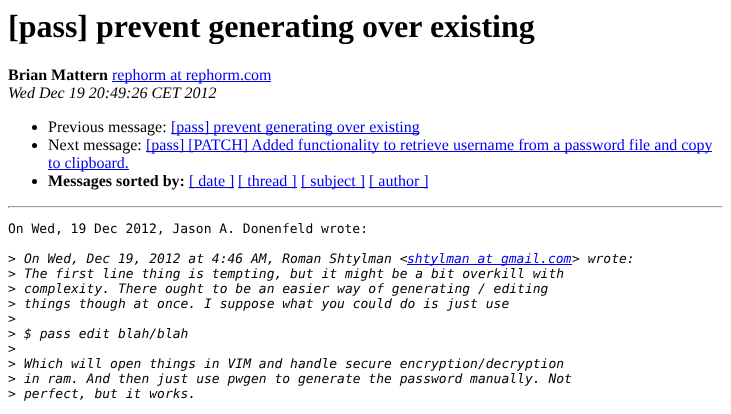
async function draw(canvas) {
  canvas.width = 731
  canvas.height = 414
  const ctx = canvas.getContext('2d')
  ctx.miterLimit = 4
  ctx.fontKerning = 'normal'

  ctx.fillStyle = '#fff'
  ctx.fillRect(0, 0, 731, 414)
  ctx.font = 'bold 32px Liberation Serif'
  ctx.fillStyle = '#000'
  ctx.fillText('[pass] prevent generating over existing', 8, 37)
  ctx.font = 'bold 16px Liberation Serif'
  ctx.fillText('Brian Mattern', 8, 80)
  ctx.fillStyle = '#00e'
  ctx.fillRect(112, 81, 159, 1)
  ctx.font = '16px Liberation Serif'
  ctx.fillText('rephorm at rephorm.com', 112, 80)
  ctx.font = 'italic 16px Liberation Serif'
  ctx.fillStyle = '#000'
  ctx.fillText('Wed Dec 19 20:49:26 CET 2012', 8, 98)
  ctx.beginPath()
  ctx.arc(34.5, 127.5, 2.5, 0, 2 * Math.PI)
  ctx.fill()
  ctx.font = '16px Liberation Serif'
  ctx.fillText('Previous message:', 48, 132)
  ctx.fillStyle = '#00e'
  ctx.fillRect(171, 133, 248, 1)
  ctx.fillText('[pass] prevent generating over existing', 171, 132)
  ctx.fillStyle = '#000'
  ctx.beginPath()
  ctx.arc(34.5, 145.5, 2.5, 0, 2 * Math.PI)
  ctx.fill()
  ctx.fillText('Next message:', 48, 150)
  ctx.fillStyle = '#00e'
  ctx.fillRect(146, 151, 566, 1)
  ctx.fillText('[pass] [PATCH] Added functionality to retrieve username from a password file and copy', 146, 150)
  ctx.fillRect(48, 169, 81, 1)
  ctx.fillText('to clipboard.', 48, 168)
  ctx.fillStyle = '#000'
  ctx.beginPath()
  ctx.arc(34.5, 181.5, 2.5, 0, 2 * Math.PI)
  ctx.fill()
  ctx.font = 'bold 16px Liberation Serif'
  ctx.fillText('Messages sorted by:', 48, 186)
  ctx.fillStyle = '#00e'
  ctx.fillRect(189, 187, 45, 1)
  ctx.font = '16px Liberation Serif'
  ctx.fillText('[ date ]', 189, 186)
  ctx.fillRect(238, 187, 59, 1)
  ctx.fillText('[ thread ]', 238, 186)
  ctx.fillRect(301, 187, 64, 1)
  ctx.fillText('[ subject ]', 301, 186)
  ctx.fillRect(369, 187, 59, 1)
  ctx.fillText('[ author ]', 369, 186)
  ctx.fillStyle = '#9f9f9f'
  ctx.fillRect(8, 206, 715, 1)
  ctx.fillStyle = '#eee'
  ctx.fillRect(722, 206, 1, 2)
  ctx.fillRect(8, 207, 715, 1)
  ctx.fillStyle = '#9f9f9f'
  ctx.fillRect(8, 206, 1, 2)
  ctx.font = '13px DejaVu Sans Mono'
  ctx.fillStyle = '#000'
  ctx.fillText('On Wed, 19 Dec 2012, Jason A. Donenfeld wrote:', 8, 233)
  ctx.fillText('>', 8, 263)
  ctx.font = 'italic 13px DejaVu Sans Mono'
  ctx.fillText('On Wed, Dec 19, 2012 at 4:46 AM, Roman Shtylman <', 24, 263)
  ctx.fillStyle = '#00e'
  ctx.fillRect(407, 264, 165, 1)
  ctx.fillText('shtylman at gmail.com', 407, 263)
  ctx.fillStyle = '#000'
  ctx.fillText('> wrote:', 572, 263)
  ctx.font = '13px DejaVu Sans Mono'
  ctx.fillText('>', 8, 278)
  ctx.font = 'italic 13px DejaVu Sans Mono'
  ctx.fillText('The first line thing is tempting, but it might be a bit overkill with', 24, 278)
  ctx.font = '13px DejaVu Sans Mono'
  ctx.fillText('>', 8, 293)
  ctx.font = 'italic 13px DejaVu Sans Mono'
  ctx.fillText('complexity. There ought to be an easier way of generating / editing', 24, 293)
  ctx.font = '13px DejaVu Sans Mono'
  ctx.fillText('>', 8, 308)
  ctx.font = 'italic 13px DejaVu Sans Mono'
  ctx.fillText('things though at once. I suppose what you could do is just use', 24, 308)
  ctx.font = '13px DejaVu Sans Mono'
  ctx.fillText('>', 8, 323)
  ctx.fillText('>', 8, 338)
  ctx.font = 'italic 13px DejaVu Sans Mono'
  ctx.fillText('$ pass edit blah/blah', 24, 338)
  ctx.font = '13px DejaVu Sans Mono'
  ctx.fillText('>', 8, 353)
  ctx.fillText('>', 8, 368)
  ctx.font = 'italic 13px DejaVu Sans Mono'
  ctx.fillText('Which will open things in VIM and handle secure encryption/decryption', 24, 368)
  ctx.font = '13px DejaVu Sans Mono'
  ctx.fillText('>', 8, 383)
  ctx.font = 'italic 13px DejaVu Sans Mono'
  ctx.fillText('in ram. And then just use pwgen to generate the password manually. Not', 24, 383)
  ctx.font = '13px DejaVu Sans Mono'
  ctx.fillText('>', 8, 398)
  ctx.font = 'italic 13px DejaVu Sans Mono'
  ctx.fillText('perfect, but it works.', 24, 398)
}

draw(document.querySelector('canvas'))
